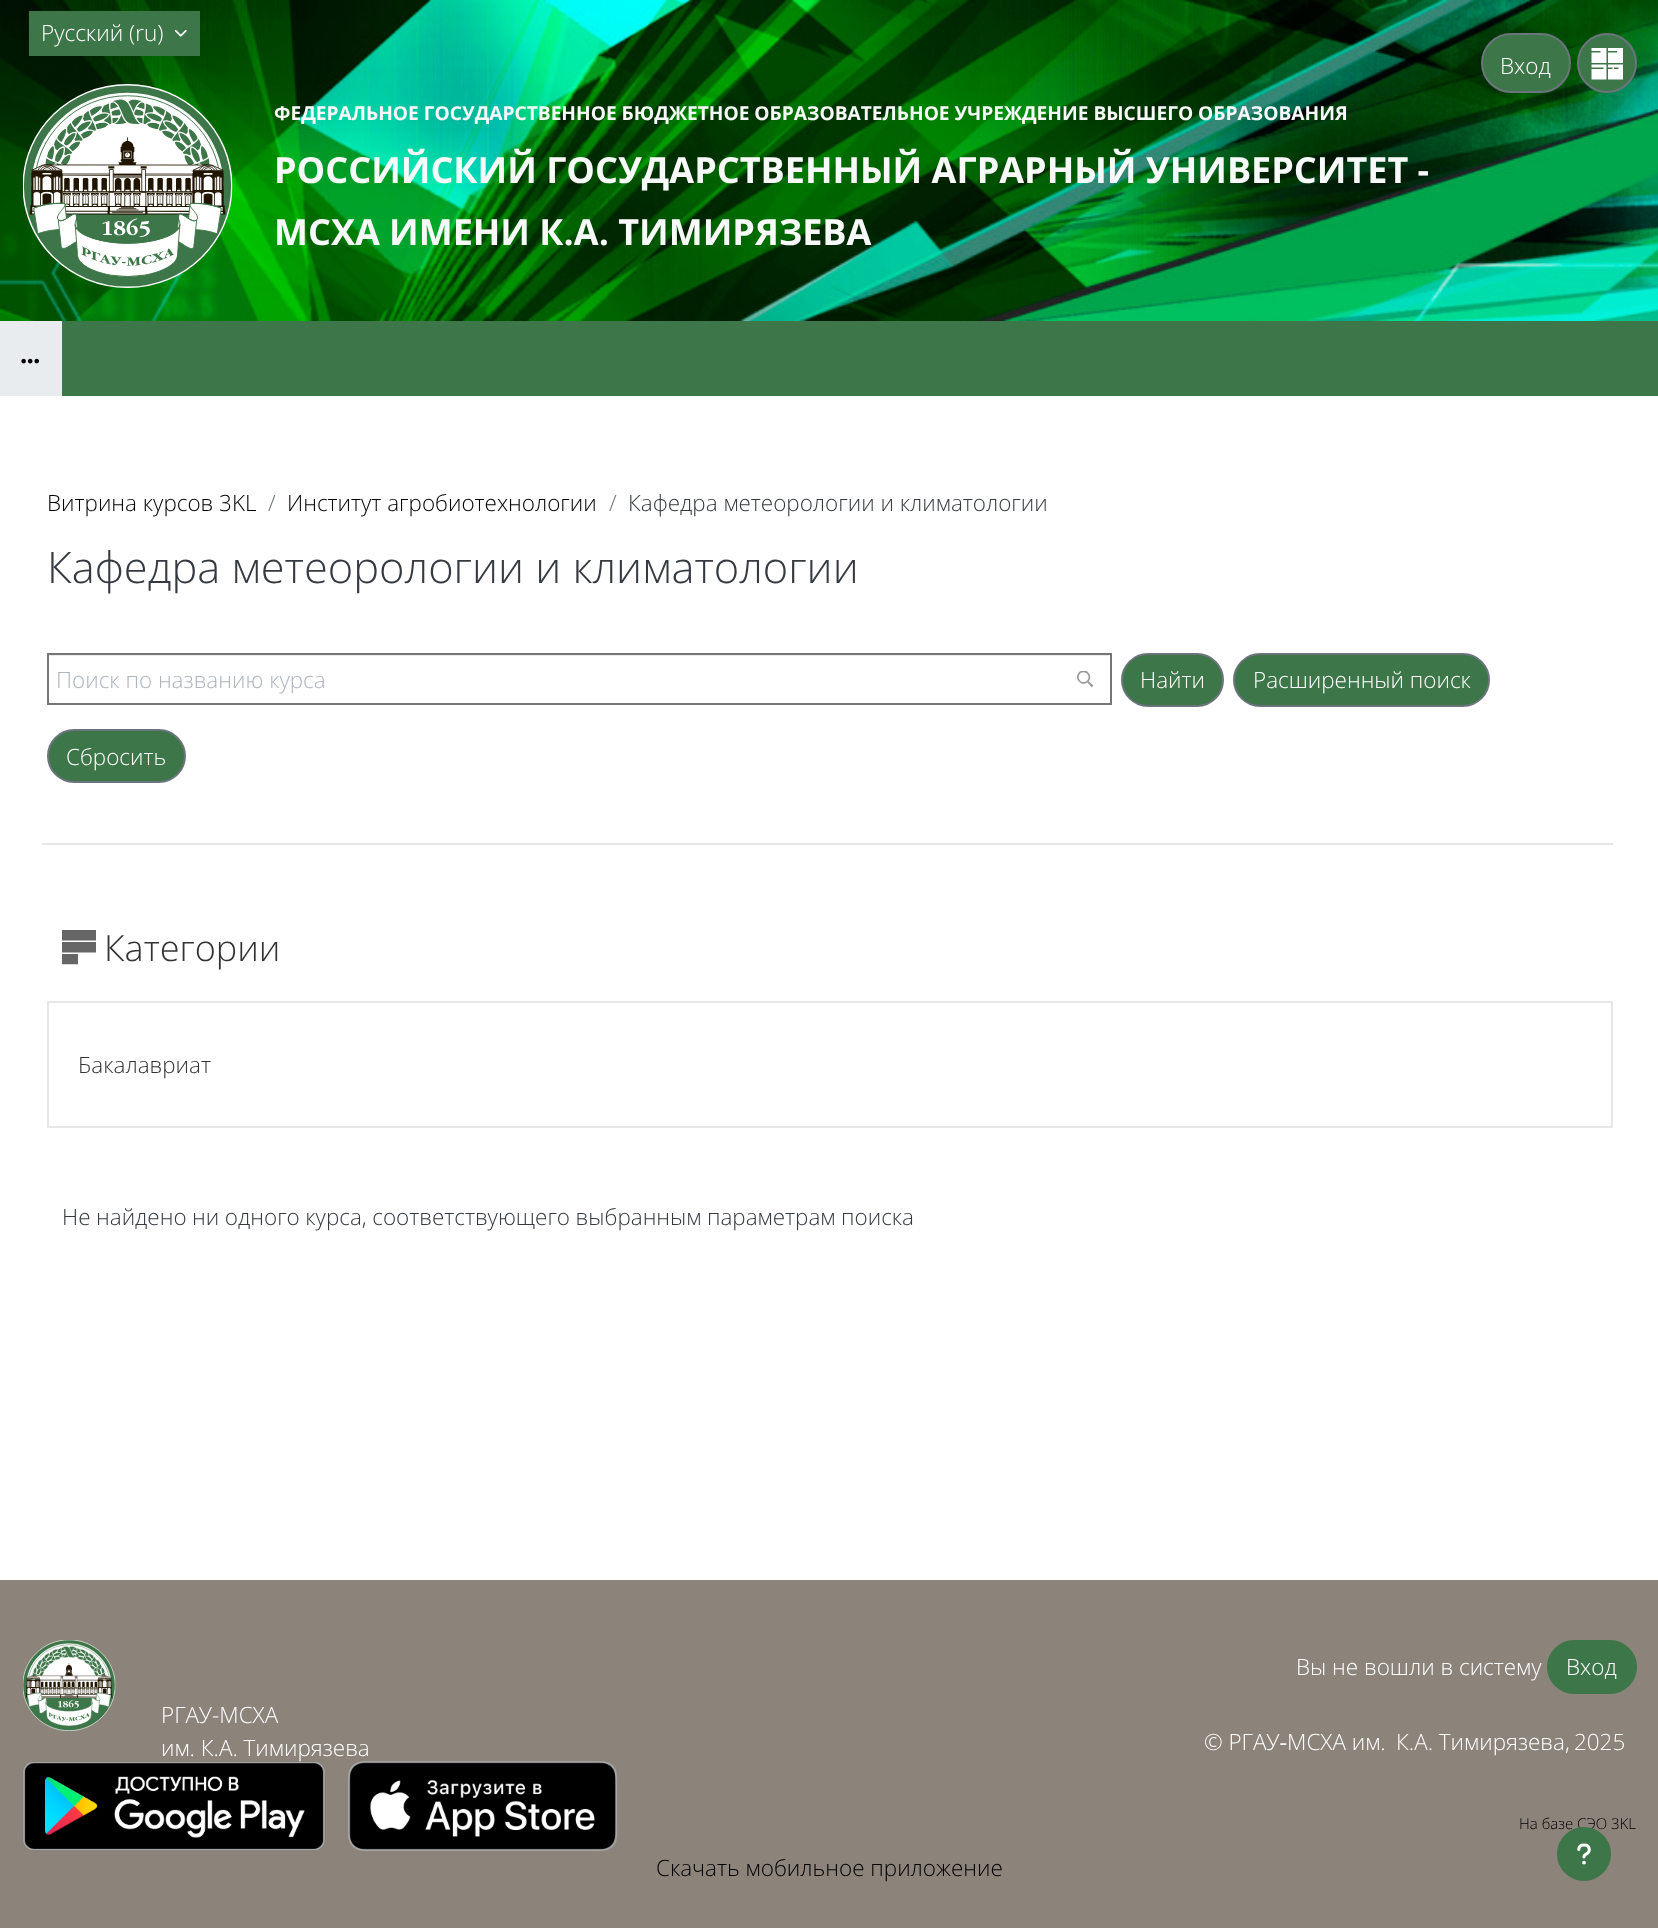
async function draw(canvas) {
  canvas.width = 1658
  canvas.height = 1928
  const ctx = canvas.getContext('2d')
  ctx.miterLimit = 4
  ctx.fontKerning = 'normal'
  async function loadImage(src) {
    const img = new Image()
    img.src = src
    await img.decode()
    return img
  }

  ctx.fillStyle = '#fff'
  ctx.fillRect(0, 0, 1658, 1928)
  ctx.drawImage(await loadImage('image0.png'), 0, 0, 1658, 321)
  ctx.fillStyle = '#3d7648'
  ctx.fillRect(29, 11, 171, 45)
  ctx.font = '300 22.5px Open Sans'
  ctx.fillStyle = '#fff'
  ctx.fillText('Русский (ru)', 41, 41)
  ctx.drawImage(await loadImage('image1.png'), 174, 30, 13, 7)
  ctx.drawImage(await loadImage('image2.png'), 23, 84, 210, 204)
  ctx.font = 'bold 19.15px Open Sans'
  ctx.fillStyle = '#f8f9f9'
  ctx.fillText('ФЕДЕРАЛЬНОЕ ГОСУДАРСТВЕННОЕ БЮДЖЕТНОЕ ОБРАЗОВАТЕЛЬНОЕ УЧРЕЖДЕНИЕ ВЫСШЕГО ОБРАЗОВАНИЯ', 274, 120)
  ctx.font = 'bold 36px Open Sans'
  ctx.fillText('РОССИЙСКИЙ ГОСУДАРСТВЕННЫЙ АГРАРНЫЙ УНИВЕРСИТЕТ -', 274, 183)
  ctx.fillText('МСХА ИМЕНИ К.А. ТИМИРЯЗЕВА', 274, 245)
  ctx.fillStyle = '#3d7648'
  ctx.beginPath()
  ctx.roundRect(1482, 34, 88, 58, 29)
  ctx.fill()
  ctx.strokeStyle = '#6c757d'
  ctx.lineWidth = 2
  ctx.stroke()
  ctx.font = '300 22.45px Open Sans'
  ctx.fillStyle = '#fff'
  ctx.fillText('Вход', 1500, 74)
  ctx.fillStyle = '#3d7648'
  ctx.beginPath()
  ctx.arc(1607, 63, 29, 0, 2 * Math.PI)
  ctx.fill()
  ctx.stroke()
  ctx.drawImage(await loadImage('image3.png'), 1591, 48, 32, 32)
  ctx.fillRect(62, 321, 1596, 75)
  ctx.fillStyle = '#e9ecef'
  ctx.fillRect(0, 321, 62, 75)
  ctx.drawImage(await loadImage('image4.png'), 21, 358, 18, 6)
  ctx.fillStyle = '#000'
  ctx.fillText('Витрина курсов 3KL', 47, 511)
  ctx.fillStyle = '#6c757d'
  ctx.fillText('/', 268, 511)
  ctx.fillStyle = '#000'
  ctx.fillText('Институт агробиотехнологии', 287, 511)
  ctx.fillStyle = '#6c757d'
  ctx.fillText('/', 609, 511)
  ctx.fillStyle = '#343a40'
  ctx.fillText('Кафедра метеорологии и климатологии', 628, 511)
  ctx.font = '300 43.4px Open Sans'
  ctx.fillText('Кафедра метеорологии и климатологии', 47, 583)
  ctx.fillStyle = '#e7e7e7'
  ctx.fillRect(42, 843, 1571, 2)
  ctx.fillStyle = '#ececec'
  ctx.fillRect(48, 655, 1062, 1)
  ctx.strokeStyle = '#757575'
  ctx.strokeRect(48, 654, 1063, 50)
  ctx.font = '300 22.45px Open Sans'
  ctx.fillStyle = '#adb5bd'
  ctx.fillText('Поиск по названию курса', 56, 688)
  ctx.drawImage(await loadImage('image5.png'), 1077, 671, 17, 16)
  ctx.fillStyle = '#3d7648'
  ctx.beginPath()
  ctx.roundRect(1122, 654, 101, 52, 26)
  ctx.fill()
  ctx.strokeStyle = '#6c757d'
  ctx.stroke()
  ctx.fillStyle = '#fff'
  ctx.fillText('Найти', 1140, 688)
  ctx.fillStyle = '#3d7648'
  ctx.beginPath()
  ctx.roundRect(1234, 654, 255, 52, 26)
  ctx.fill()
  ctx.stroke()
  ctx.fillStyle = '#fff'
  ctx.fillText('Расширенный поиск', 1253, 688)
  ctx.fillStyle = '#3d7648'
  ctx.beginPath()
  ctx.roundRect(48, 730, 137, 52, 26)
  ctx.fill()
  ctx.stroke()
  ctx.fillStyle = '#fff'
  ctx.fillText('Сбросить', 66, 765)
  ctx.drawImage(await loadImage('image6.png'), 62, 930, 34, 35)
  ctx.font = '300 36px Open Sans'
  ctx.fillStyle = '#333'
  ctx.fillText('Категории', 104, 961)
  ctx.strokeStyle = '#e7e7e7'
  ctx.strokeRect(48, 1002, 1564, 125)
  ctx.font = '300 22.45px Open Sans'
  ctx.fillText('Бакалавриат', 78, 1073)
  ctx.wordSpacing = '-0.25px'
  ctx.fillStyle = '#343a40'
  ctx.fillText('Не найдено ни одного курса, соответствующего выбранным параметрам поиска', 62, 1225)
  ctx.fillStyle = '#8c837b'
  ctx.fillRect(0, 1580, 1658, 348)
  ctx.drawImage(await loadImage('image7.png'), 23, 1640, 93, 91)
  ctx.drawImage(await loadImage('image8.png'), 22, 1761, 304, 90)
  ctx.drawImage(await loadImage('image9.png'), 348, 1761, 270, 90)
  ctx.wordSpacing = '0px'
  ctx.fillStyle = '#fff'
  ctx.fillText('Вы не вошли в систему', 1296, 1675)
  ctx.fillStyle = '#3d7648'
  ctx.beginPath()
  ctx.roundRect(1548, 1641, 88, 52, 26)
  ctx.fill()
  ctx.strokeStyle = '#3d7648'
  ctx.stroke()
  ctx.fillStyle = '#fff'
  ctx.fillText('Вход', 1566, 1675)
  ctx.fillText('© РГАУ‑МСХА им.', 1204, 1750)
  ctx.fillText('К.А. Тимирязева,', 1396, 1750)
  ctx.fillText('2025', 1574, 1750)
  ctx.font = '300 15px Open Sans'
  ctx.fillStyle = '#000'
  ctx.fillText('На базе СЭО 3KL', 1519, 1829)
  ctx.font = '300 22.45px Open Sans'
  ctx.fillStyle = '#fff'
  ctx.fillText('РГАУ-МСХА', 161, 1723)
  ctx.fillText('им. К.А. Тимирязева', 161, 1756)
  ctx.fillStyle = '#000'
  ctx.fillText('Скачать мобильное приложение', 656, 1876)
  ctx.fillStyle = '#3d7648'
  ctx.beginPath()
  ctx.arc(1584, 1854, 26, 0, 2 * Math.PI)
  ctx.fill()
  ctx.stroke()
  ctx.drawImage(await loadImage('image10.png'), 1577, 1843, 14, 22)
}

draw(document.querySelector('canvas'))
